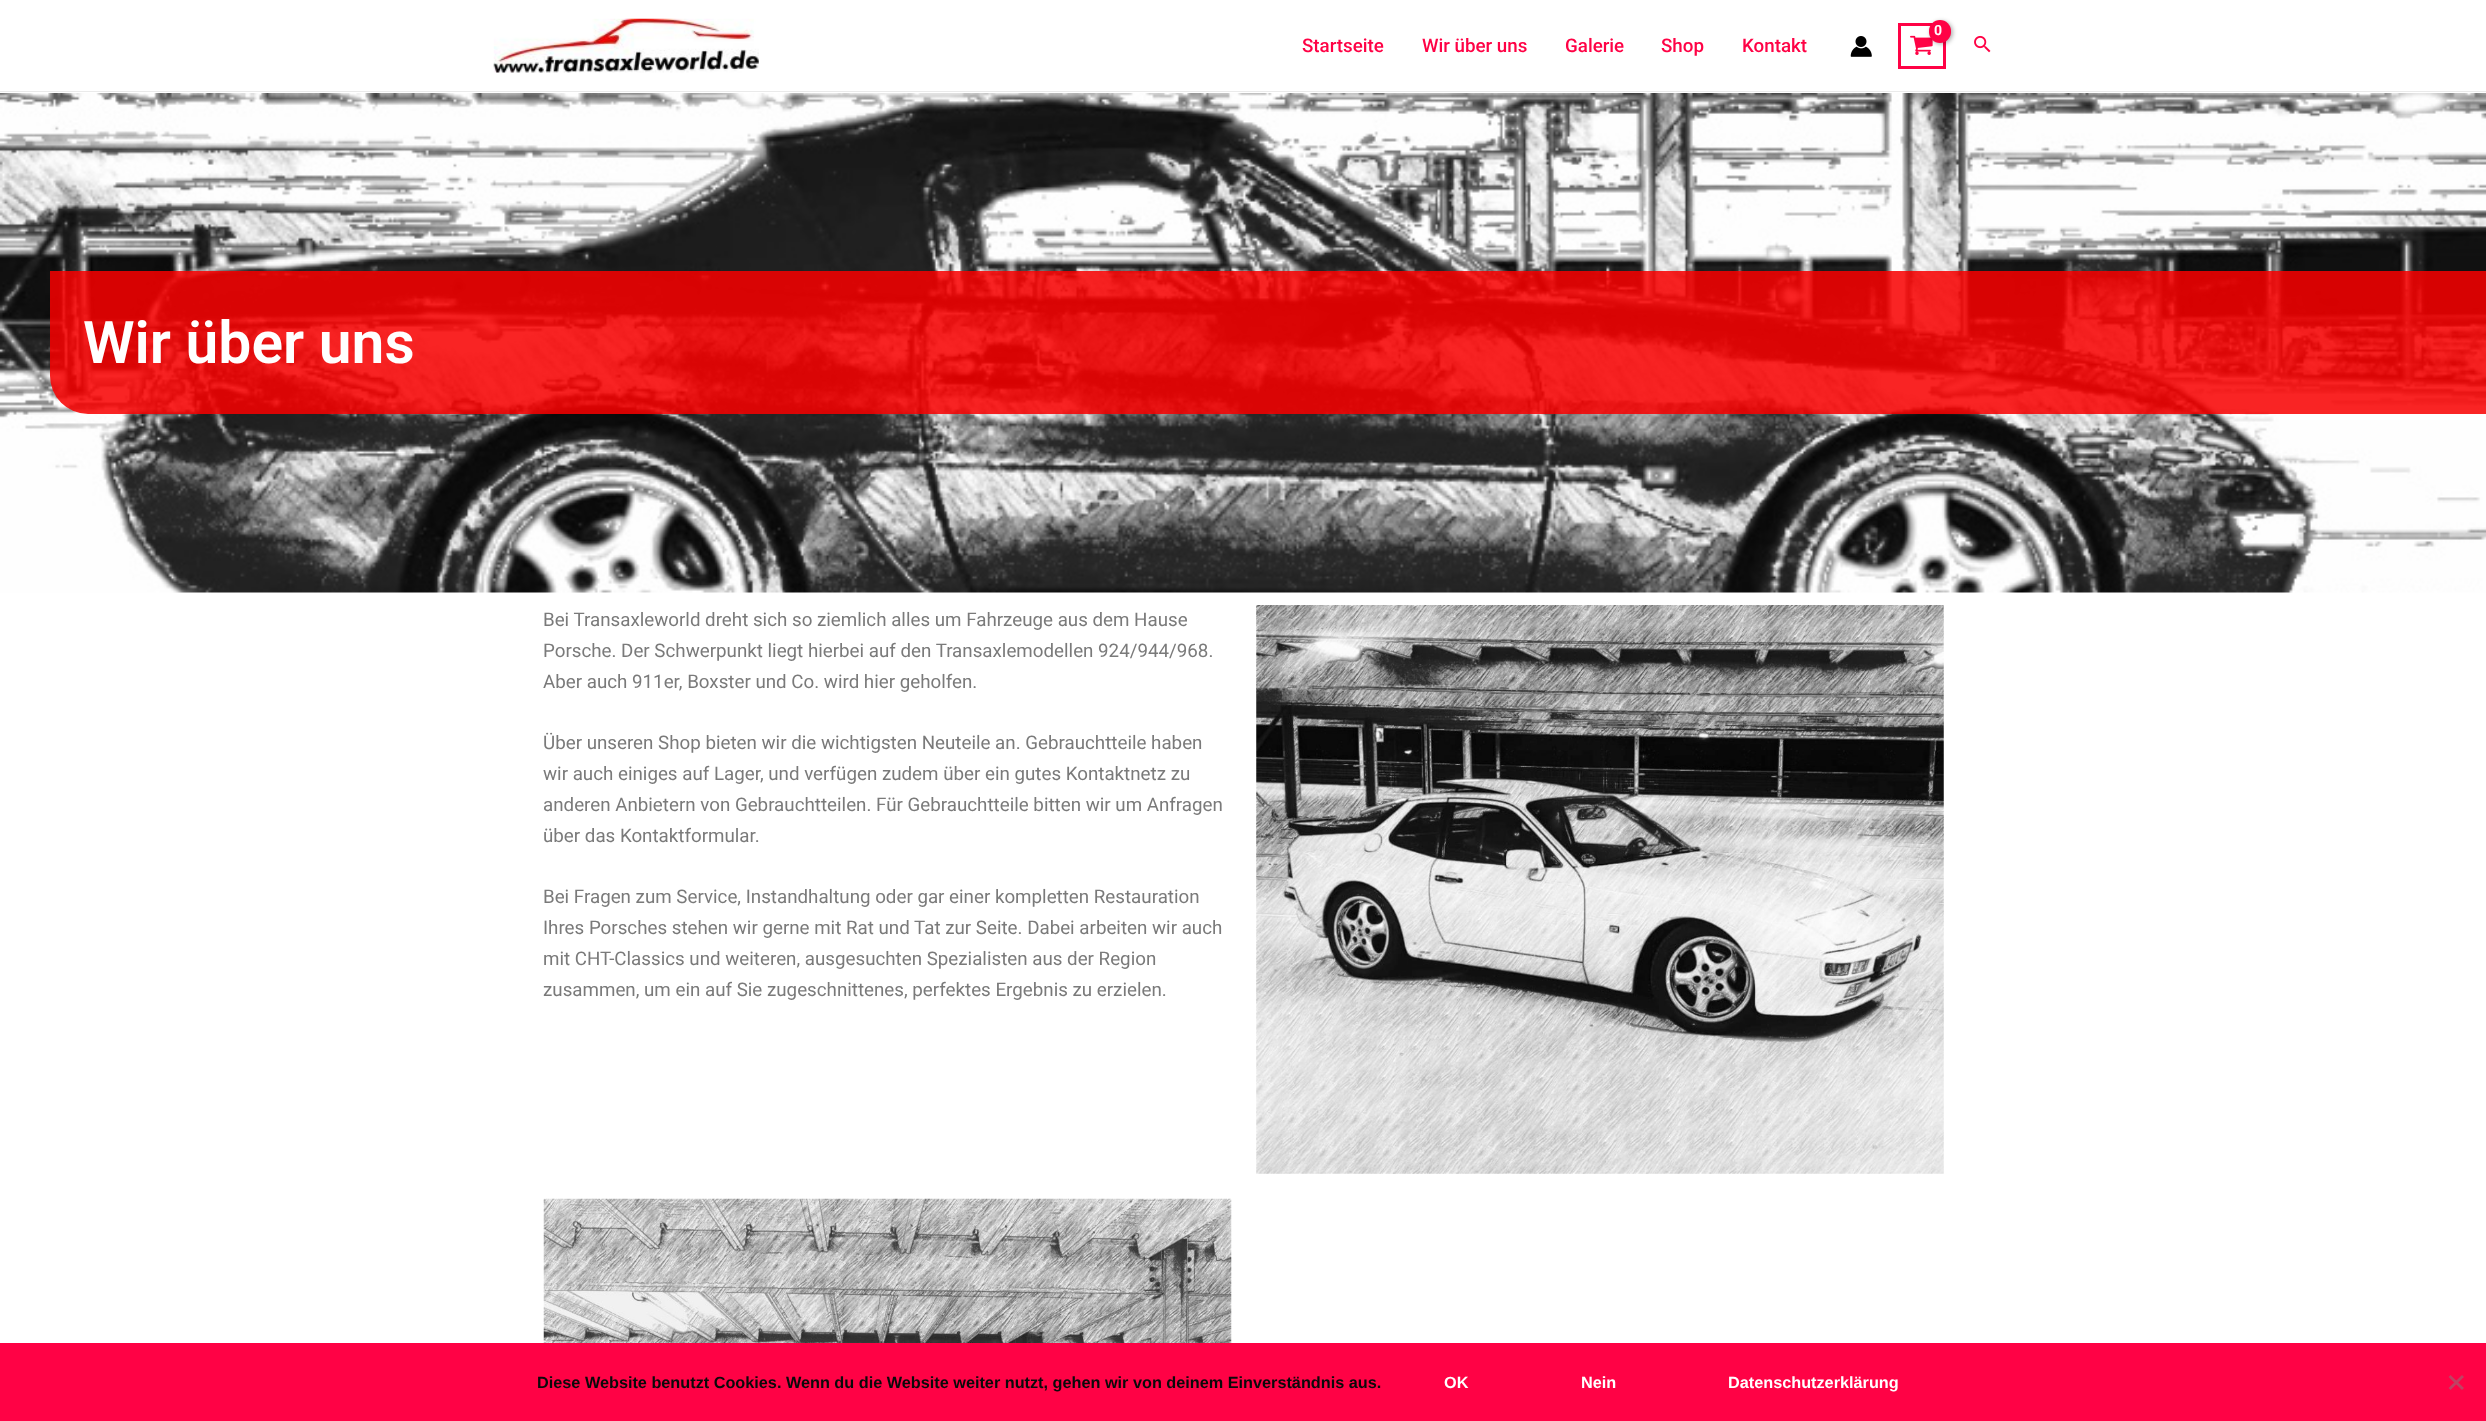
async function draw(canvas) {
  canvas.width = 2486
  canvas.height = 1421
  const ctx = canvas.getContext('2d')
  ctx.miterLimit = 4
  ctx.fontKerning = 'normal'
  async function loadImage(src) {
    const img = new Image()
    img.src = src
    await img.decode()
    return img
  }

  ctx.fillStyle = '#fff'
  ctx.fillRect(0, 0, 2486, 1421)
  ctx.fillStyle = '#eaeaea'
  ctx.fillRect(0, 91, 2486, 1)
  ctx.drawImage(await loadImage('image0.png'), 493, 18, 266, 55)
  ctx.strokeStyle = '#ff0245'
  ctx.lineWidth = 3
  ctx.strokeRect(1899.5, 24.5, 45, 43)
  ctx.drawImage(await loadImage('image1.png'), 1910, 35, 23, 20)
  ctx.fillStyle = '#0000004d'
  ctx.filter = 'blur(2px)'
  ctx.beginPath()
  ctx.roundRect(1930, 21, 23, 23, 11.5)
  ctx.fill()
  ctx.filter = 'none'
  ctx.fillStyle = '#ff0245'
  ctx.beginPath()
  ctx.roundRect(1929, 20, 22, 23, 11)
  ctx.fill()
  ctx.letterSpacing = '-1px'
  ctx.font = 'bold 14px Roboto'
  ctx.fillStyle = '#fff'
  ctx.fillText('0', 1934, 35)
  ctx.letterSpacing = '0px'
  ctx.font = '500 18.75px Roboto'
  ctx.fillStyle = '#ff0245'
  ctx.fillText('Startseite', 1302, 52)
  ctx.fillText('Wir über uns', 1422, 52)
  ctx.fillText('Galerie', 1565, 52)
  ctx.fillText('Shop', 1661, 52)
  ctx.fillText('Kontakt', 1742, 52)
  ctx.drawImage(await loadImage('image2.png'), 1850, 36, 22, 21)
  ctx.drawImage(await loadImage('image3.png'), 1974, 35, 17, 18)
  ctx.drawImage(await loadImage('image4.png'), 0, 93, 2486, 500)
  ctx.fillStyle = '#f80000db'
  ctx.beginPath()
  ctx.roundRect(50, 271, 2436, 143, [0, 0, 0, 38])
  ctx.fill()
  ctx.font = '600 58.75px Roboto'
  ctx.fillStyle = '#fff'
  ctx.fillText('Wir über uns', 83, 363)
  ctx.font = '18.75px Roboto'
  ctx.fillStyle = '#7a7a7a'
  ctx.fillText('Bei Transaxleworld dreht sich so ziemlich alles um Fahrzeuge aus dem Hause', 543, 626)
  ctx.fillText('Porsche. Der Schwerpunkt liegt hierbei auf den Transaxlemodellen 924/944/968.', 543, 657)
  ctx.fillText('Aber auch 911er, Boxster und Co. wird hier geholfen.', 543, 688)
  ctx.fillText('Über unseren Shop bieten wir die wichtigsten Neuteile an. Gebrauchtteile haben', 543, 749)
  ctx.fillText('wir auch einiges auf Lager, und verfügen zudem über ein gutes Kontaktnetz zu', 543, 780)
  ctx.fillText('anderen Anbietern von Gebrauchtteilen. Für Gebrauchtteile bitten wir um Anfragen', 543, 811)
  ctx.fillText('über das Kontaktformular.', 543, 842)
  ctx.fillText('Bei Fragen zum Service, Instandhaltung oder gar einer kompletten Restauration', 543, 903)
  ctx.fillText('Ihres Porsches stehen wir gerne mit Rat und Tat zur Seite. Dabei arbeiten wir auch', 543, 934)
  ctx.fillText('mit CHT-Classics und weiteren, ausgesuchten Spezialisten aus der Region', 543, 965)
  ctx.fillText('zusammen, um ein auf Sie zugeschnittenes, perfektes Ergebnis zu erzielen.', 543, 996)
  ctx.drawImage(await loadImage('image5.png'), 1256, 605, 688, 569)
  ctx.drawImage(await loadImage('image6.png'), 543, 1198, 689, 145)
  ctx.fillStyle = '#ff0245'
  ctx.fillRect(0, 1343, 2486, 78)
  ctx.font = 'bold 16.25px Liberation Sans'
  ctx.fillStyle = '#0a0a0a'
  ctx.fillText('Diese Website benutzt Cookies. Wenn du die Website weiter nutzt, gehen wir von deinem Einverständnis aus.', 537, 1388)
  ctx.fillStyle = '#fff'
  ctx.fillText('OK', 1444, 1388)
  ctx.fillText('Nein', 1581, 1388)
  ctx.fillText('Datenschutzerklärung', 1728, 1388)
  ctx.fillStyle = '#c04163'
  ctx.beginPath()
  ctx.moveTo(2462, 1375)
  ctx.lineTo(2464, 1377)
  ctx.lineTo(2450.5, 1390)
  ctx.lineTo(2448.5, 1388)
  ctx.closePath()
  ctx.fill()
  ctx.beginPath()
  ctx.moveTo(2448.5, 1377)
  ctx.lineTo(2450.5, 1375)
  ctx.lineTo(2464, 1388)
  ctx.lineTo(2462, 1390)
  ctx.closePath()
  ctx.fill()
}

draw(document.querySelector('canvas'))
